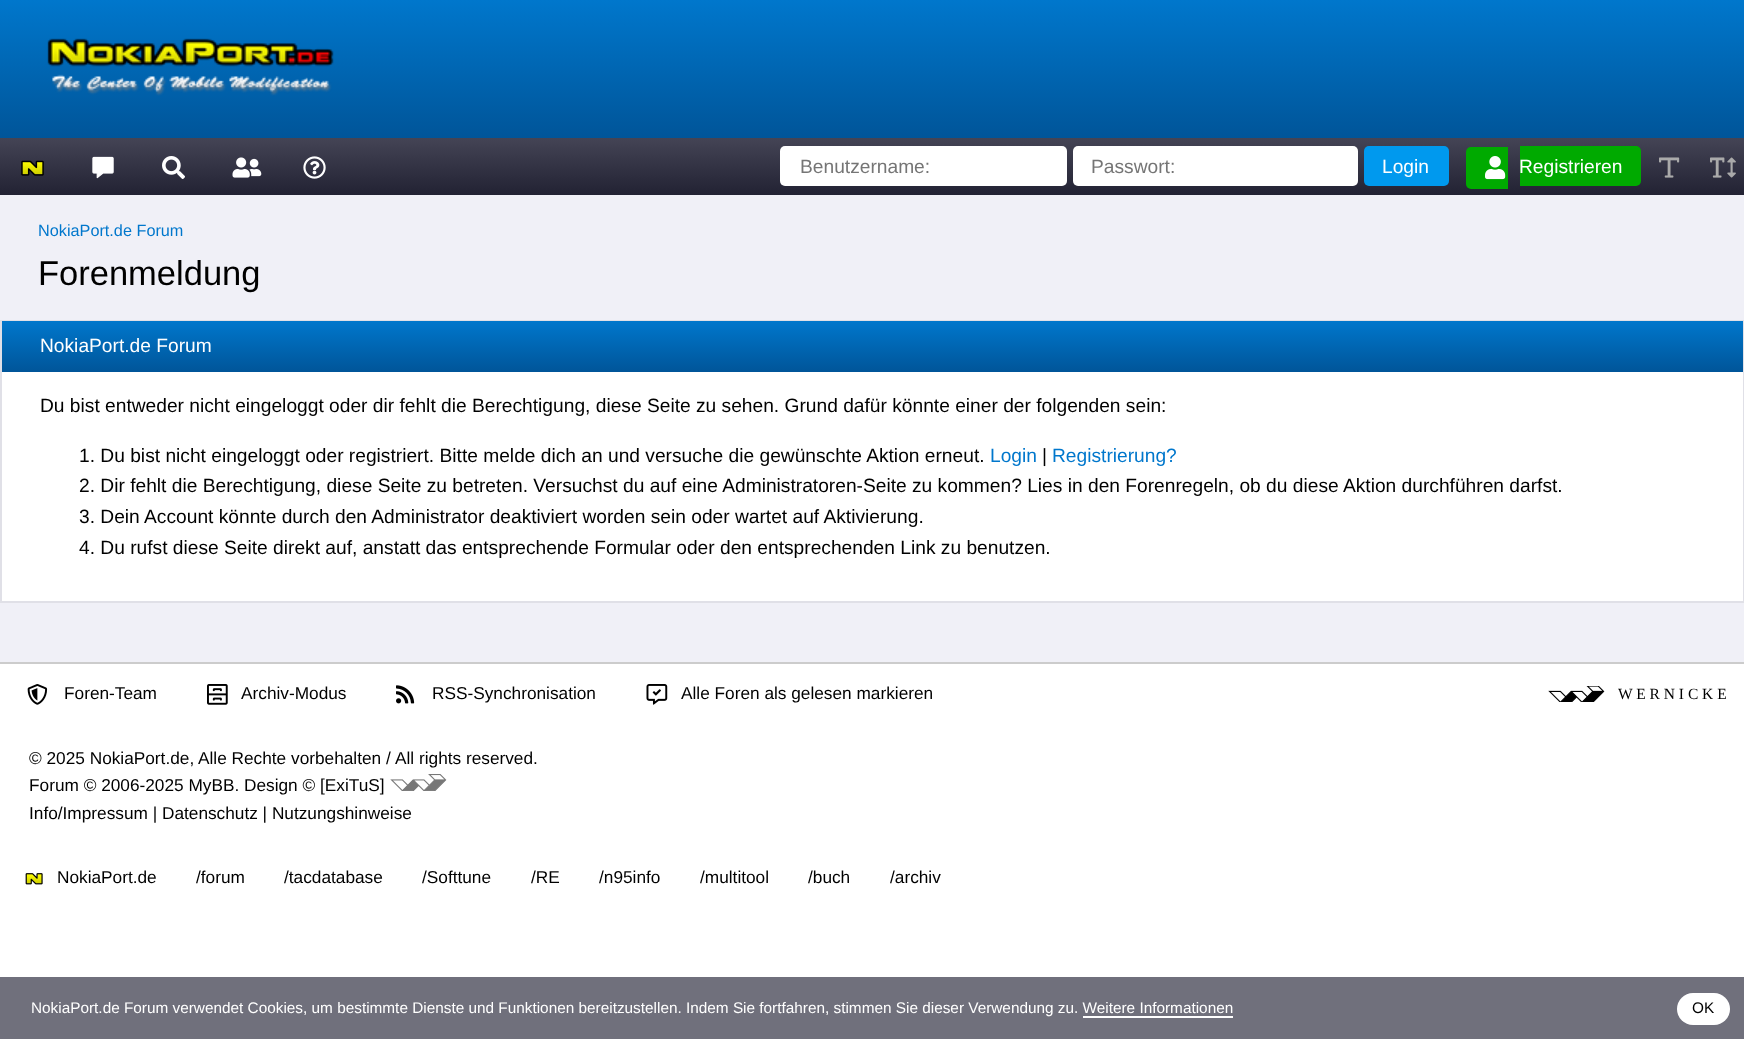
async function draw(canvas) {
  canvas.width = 1744
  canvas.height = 1039
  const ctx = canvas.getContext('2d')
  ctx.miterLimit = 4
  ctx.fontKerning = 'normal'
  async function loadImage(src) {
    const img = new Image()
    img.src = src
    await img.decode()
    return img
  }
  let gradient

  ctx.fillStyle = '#fff'
  ctx.fillRect(0, 0, 1744, 1039)
  ctx.fillStyle = '#f0f0f7'
  ctx.fillRect(0, 195, 1744, 467)
  gradient = ctx.createLinearGradient(872, 0, 872, 138)
  gradient.addColorStop(0, '#07c')
  gradient.addColorStop(1, '#059')
  ctx.fillStyle = gradient
  ctx.fillRect(0, 0, 1744, 138)
  ctx.drawImage(await loadImage('image0.png'), 47, 38, 287, 58)
  gradient = ctx.createLinearGradient(872, 138, 872, 195)
  gradient.addColorStop(0, '#445')
  gradient.addColorStop(1, '#223')
  ctx.fillStyle = gradient
  ctx.fillRect(0, 138, 1744, 57)
  ctx.drawImage(await loadImage('image1.png'), 21, 160, 23, 16)
  ctx.drawImage(await loadImage('image2.png'), 92, 156, 22, 23)
  ctx.drawImage(await loadImage('image3.png'), 162, 156, 23, 23)
  ctx.drawImage(await loadImage('image4.png'), 232, 157, 30, 21)
  ctx.drawImage(await loadImage('image5.png'), 303, 156, 23, 23)
  ctx.fillStyle = '#fff'
  ctx.beginPath()
  ctx.roundRect(780, 146, 287, 40, 5)
  ctx.fill()
  ctx.font = '19.2px Liberation Sans'
  ctx.fillStyle = '#757575'
  ctx.fillText('Benutzername:', 800, 173)
  ctx.fillStyle = '#fff'
  ctx.beginPath()
  ctx.roundRect(1073, 146, 285, 40, 5)
  ctx.fill()
  ctx.fillStyle = '#757575'
  ctx.fillText('Passwort:', 1091, 173)
  ctx.fillStyle = '#09e'
  ctx.beginPath()
  ctx.roundRect(1364, 146, 85, 40, 5)
  ctx.fill()
  ctx.fillStyle = '#fff'
  ctx.fillText('Login', 1382, 173)
  ctx.fillStyle = '#0a0'
  ctx.beginPath()
  ctx.roundRect(1466, 147, 42, 42, [5, 0, 0, 5])
  ctx.fill()
  ctx.drawImage(await loadImage('image6.png'), 1485, 156, 21, 24)
  ctx.beginPath()
  ctx.roundRect(1520, 146, 121, 40, [0, 5, 5, 0])
  ctx.fill()
  ctx.fillStyle = '#fff'
  ctx.fillText('Registrieren', 1519, 173)
  ctx.drawImage(await loadImage('image7.png'), 1659, 157, 21, 21)
  ctx.drawImage(await loadImage('image8.png'), 1710, 157, 26, 21)
  ctx.font = '16.25px Liberation Sans'
  ctx.fillStyle = '#07c'
  ctx.fillText('NokiaPort.de Forum', 38, 236)
  ctx.font = '34.5px Liberation Sans'
  ctx.fillStyle = '#000'
  ctx.fillText('Forenmeldung', 38, 285)
  ctx.fillStyle = '#fff'
  ctx.fillRect(2, 372, 1741, 229)
  ctx.strokeStyle = '#e0e0e7'
  ctx.lineWidth = 2
  ctx.strokeRect(1, 321, 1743, 281)
  gradient = ctx.createLinearGradient(872, 321, 872, 372)
  gradient.addColorStop(0, '#07c')
  gradient.addColorStop(1, '#059')
  ctx.fillStyle = gradient
  ctx.fillRect(2, 321, 1741, 51)
  ctx.font = '19.2px Liberation Sans'
  ctx.fillStyle = '#fff'
  ctx.fillText('NokiaPort.de Forum', 40, 352)
  ctx.fillStyle = '#000'
  ctx.fillText('Du bist entweder nicht eingeloggt oder dir fehlt die Berechtigung, diese Seite zu sehen. Grund dafür könnte einer der folgenden sein:', 40, 412)
  ctx.fillText('1. Du bist nicht eingeloggt oder registriert. Bitte melde dich an und versuche die gewünschte Aktion erneut.', 79, 462)
  ctx.fillStyle = '#07c'
  ctx.fillText('Login', 990, 462)
  ctx.fillStyle = '#000'
  ctx.fillText('|', 1042, 462)
  ctx.fillStyle = '#07c'
  ctx.fillText('Registrierung?', 1052, 462)
  ctx.fillStyle = '#000'
  ctx.fillText('2. Dir fehlt die Berechtigung, diese Seite zu betreten. Versuchst du auf eine Administratoren-Seite zu kommen? Lies in den Forenregeln, ob du diese Aktion durchführen darfst.', 79, 492)
  ctx.fillText('3. Dein Account könnte durch den Administrator deaktiviert worden sein oder wartet auf Aktivierung.', 79, 523)
  ctx.fillText('4. Du rufst diese Seite direkt auf, anstatt das entsprechende Formular oder den entsprechenden Link zu benutzen.', 79, 554)
  ctx.fillStyle = '#ccc'
  ctx.fillRect(0, 662, 1744, 2)
  ctx.drawImage(await loadImage('image9.png'), 27, 684, 21, 21)
  ctx.font = '17.25px Liberation Sans'
  ctx.fillStyle = '#000'
  ctx.fillText('Foren-Team', 64, 699)
  ctx.drawImage(await loadImage('image10.png'), 207, 684, 21, 21)
  ctx.fillText('Archiv-Modus', 241, 699)
  ctx.drawImage(await loadImage('image11.png'), 396, 685, 19, 19)
  ctx.fillText('RSS-Synchronisation', 432, 699)
  ctx.drawImage(await loadImage('image12.png'), 646, 684, 22, 21)
  ctx.fillText('Alle Foren als gelesen markieren', 681, 699)
  ctx.drawImage(await loadImage('image13.png'), 1548, 686, 57, 16)
  ctx.font = '15.5px Liberation Serif'
  ctx.fillText('W E R N I C K E', 1618, 699)
  ctx.font = '17.25px Liberation Sans'
  ctx.fillText('© 2025 NokiaPort.de,', 29, 764)
  ctx.fillText('Alle Rechte vorbehalten /', 198, 764)
  ctx.fillText('All rights reserved.', 395, 764)
  ctx.fillText('Forum © 2006-2025 MyBB. Design © [ExiTuS]', 29, 791)
  ctx.drawImage(await loadImage('image14.png'), 390, 774, 57, 17)
  ctx.fillText('Info/Impressum | Datenschutz | Nutzungshinweise', 29, 819)
  ctx.drawImage(await loadImage('image15.png'), 25, 873, 18, 12)
  ctx.fillText('NokiaPort.de', 57, 883)
  ctx.fillText('/forum', 196, 883)
  ctx.fillText('/tacdatabase', 284, 883)
  ctx.fillText('/Softtune', 422, 883)
  ctx.fillText('/RE', 531, 883)
  ctx.fillText('/n95info', 599, 883)
  ctx.fillText('/multitool', 700, 883)
  ctx.fillText('/buch', 808, 883)
  ctx.fillText('/archiv', 890, 883)
  ctx.fillStyle = '#70707c'
  ctx.fillRect(0, 977, 1744, 62)
  ctx.font = '15.35px Liberation Sans'
  ctx.fillStyle = '#fff'
  ctx.fillText('NokiaPort.de Forum verwendet Cookies, um bestimmte Dienste und Funktionen bereitzustellen. Indem Sie fortfahren, stimmen Sie dieser Verwendung zu. Weitere Informationen', 31, 1013)
  ctx.fillRect(1083, 1016, 150, 2)
  ctx.beginPath()
  ctx.roundRect(1677, 993, 53, 32, 16)
  ctx.fill()
  ctx.fillStyle = '#000'
  ctx.fillText('OK', 1692, 1013)
}

draw(document.querySelector('canvas'))
